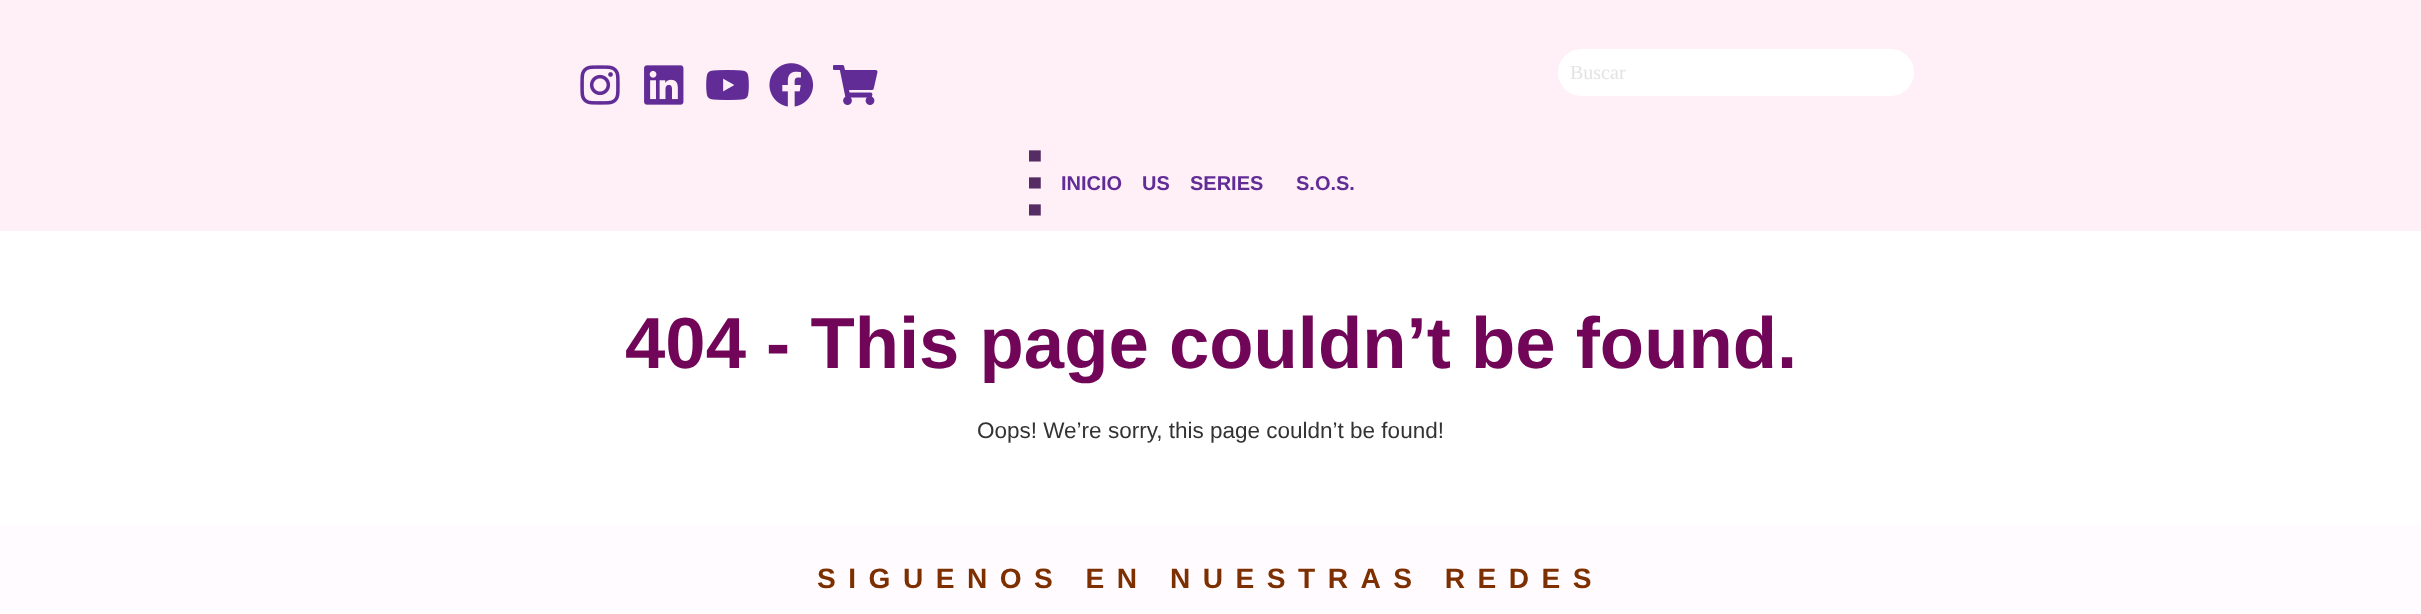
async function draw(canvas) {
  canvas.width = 2421
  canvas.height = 614
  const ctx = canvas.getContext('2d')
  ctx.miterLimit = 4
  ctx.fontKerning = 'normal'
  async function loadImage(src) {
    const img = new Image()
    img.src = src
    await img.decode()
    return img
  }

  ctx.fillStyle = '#fff'
  ctx.fillRect(0, 0, 2421, 614)
  ctx.fillStyle = '#fef0f6'
  ctx.fillRect(0, 0, 2421, 231)
  ctx.drawImage(await loadImage('image0.png'), 580, 65, 40, 40)
  ctx.drawImage(await loadImage('image1.png'), 644, 65, 40, 40)
  ctx.drawImage(await loadImage('image2.png'), 706, 70, 43, 30)
  ctx.drawImage(await loadImage('image3.png'), 769, 63, 45, 44)
  ctx.drawImage(await loadImage('image4.png'), 833, 65, 45, 40)
  ctx.fillStyle = '#fff'
  ctx.beginPath()
  ctx.roundRect(1558, 49, 356, 47, 23.5)
  ctx.fill()
  ctx.font = '20px Liberation Serif'
  ctx.fillStyle = '#e3e3e3'
  ctx.fillText('Buscar', 1570, 79)
  ctx.letterSpacing = '5px'
  ctx.font = 'bold 79px Liberation Sans'
  ctx.fillStyle = '#562c64'
  ctx.save()
  ctx.translate(1029, 145)
  ctx.rotate(90 * Math.PI / 180)
  ctx.fillText('...', 0, 0)
  ctx.restore()
  ctx.letterSpacing = '0px'
  ctx.font = 'bold 20px Liberation Sans'
  ctx.fillStyle = '#612c96'
  ctx.fillText('INICIO', 1061, 190)
  ctx.fillText('US', 1142, 190)
  ctx.fillText('SERIES', 1190, 190)
  ctx.fillText('S.O.S.', 1296, 190)
  ctx.font = 'bold 72.5px Liberation Sans'
  ctx.fillStyle = '#710658'
  ctx.fillText('404 - This page couldn’t be found.', 625, 368)
  ctx.font = '22.5px Liberation Sans'
  ctx.fillStyle = '#333'
  ctx.fillText('Oops! We’re sorry, this page couldn’t be found!', 977, 438)
  ctx.fillStyle = '#fffbfe'
  ctx.fillRect(0, 525, 2421, 89)
  ctx.letterSpacing = '12.5px'
  ctx.font = 'bold 28.1px Liberation Sans'
  ctx.fillStyle = '#7d2f00'
  ctx.fillText('SIGUENOS EN NUESTRAS REDES', 817, 588)
}

draw(document.querySelector('canvas'))
